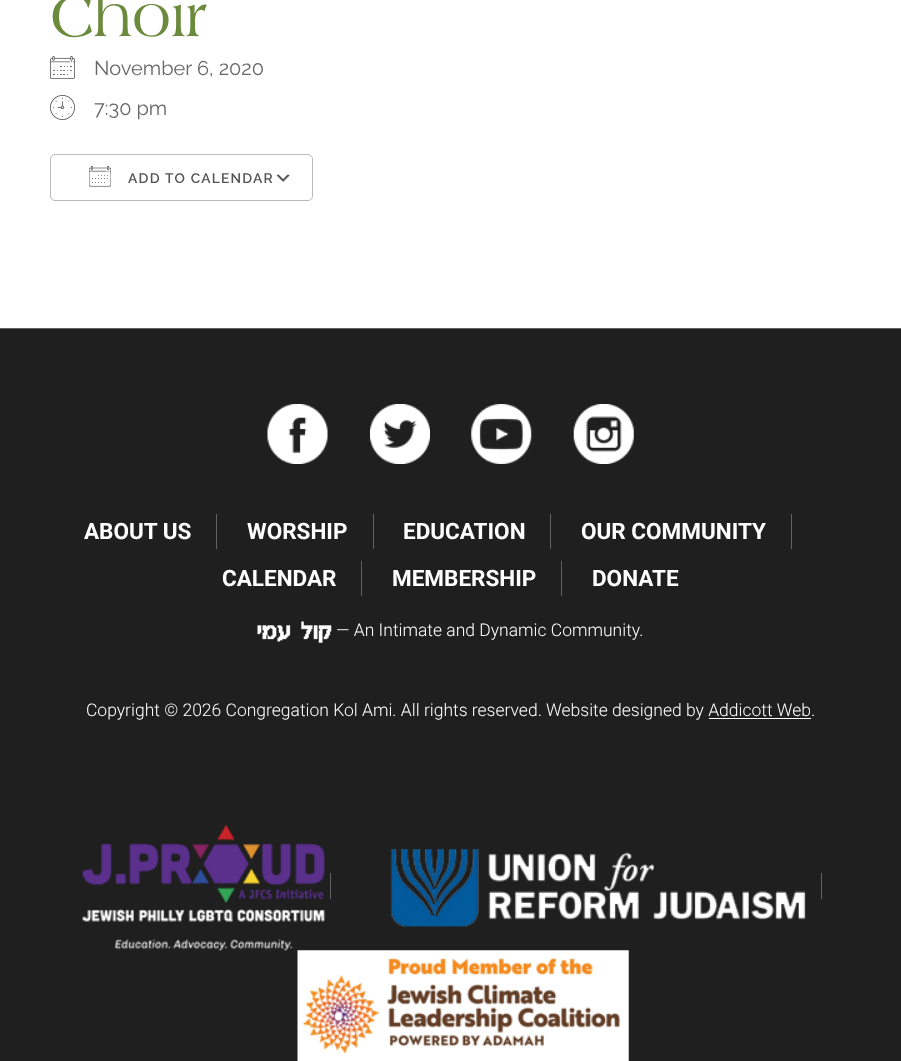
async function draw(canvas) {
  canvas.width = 901
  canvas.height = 1061
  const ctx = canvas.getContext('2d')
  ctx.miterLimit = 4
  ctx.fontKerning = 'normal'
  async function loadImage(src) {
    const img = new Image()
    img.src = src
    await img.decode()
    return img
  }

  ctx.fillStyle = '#1f1f1f'
  ctx.fillRect(0, 0, 901, 1061)
  ctx.fillStyle = '#fff'
  ctx.fillRect(0, 0, 901, 328)
  ctx.font = '60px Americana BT'
  ctx.fillStyle = '#6b8a3c'
  ctx.fillText('Choir', 50, 36)
  ctx.drawImage(await loadImage('image0.png'), 50, 56, 25, 23)
  ctx.font = '20px Raleway'
  ctx.fillStyle = '#666'
  ctx.fillText('November 6, 2020', 94, 75)
  ctx.drawImage(await loadImage('image1.png'), 50, 95, 25, 25)
  ctx.fillText('7:30 pm', 94, 115)
  ctx.drawImage(await loadImage('image2.png'), 276, 174, 14, 8)
  ctx.beginPath()
  ctx.roundRect(50.5, 154.5, 262, 46, 4.5)
  ctx.strokeStyle = '#bababa'
  ctx.stroke()
  ctx.drawImage(await loadImage('image3.png'), 89, 165, 22, 22)
  ctx.letterSpacing = '1.25px'
  ctx.font = '600 13.75px Raleway'
  ctx.fillStyle = '#545454'
  ctx.fillText('ADD TO CALENDAR', 128, 183)
  ctx.fillStyle = '#626262'
  ctx.fillRect(0, 328, 901, 1)
  ctx.drawImage(await loadImage('image4.png'), 267, 404, 61, 60)
  ctx.drawImage(await loadImage('image5.png'), 370, 404, 60, 60)
  ctx.drawImage(await loadImage('image6.png'), 471, 404, 61, 60)
  ctx.drawImage(await loadImage('image7.png'), 573, 404, 61, 60)
  ctx.fillRect(216, 514, 1, 35)
  ctx.letterSpacing = '0px'
  ctx.font = 'bold 22.5px Roboto'
  ctx.fillStyle = '#fff'
  ctx.fillText('ABOUT US', 84, 539)
  ctx.fillStyle = '#626262'
  ctx.fillRect(373, 514, 1, 35)
  ctx.fillStyle = '#fff'
  ctx.fillText('WORSHIP', 247, 539)
  ctx.fillStyle = '#626262'
  ctx.fillRect(550, 514, 1, 35)
  ctx.fillStyle = '#fff'
  ctx.fillText('EDUCATION', 403, 539)
  ctx.fillStyle = '#626262'
  ctx.fillRect(791, 514, 1, 35)
  ctx.fillStyle = '#fff'
  ctx.fillText('OUR COMMUNITY', 581, 539)
  ctx.fillStyle = '#626262'
  ctx.fillRect(361, 561, 1, 35)
  ctx.fillStyle = '#fff'
  ctx.fillText('CALENDAR', 222, 586)
  ctx.fillStyle = '#626262'
  ctx.fillRect(561, 561, 1, 35)
  ctx.fillStyle = '#fff'
  ctx.fillText('MEMBERSHIP', 392, 586)
  ctx.fillText('DONATE', 592, 586)
  ctx.drawImage(await loadImage('image8.png'), 257, 621, 75, 22)
  ctx.font = '300 17.5px Roboto'
  ctx.fillText('— An Intimate and Dynamic Community.', 336, 636)
  ctx.fillText('Copyright © 2026 Congregation Kol Ami. All rights reserved. Website designed by Addicott Web.', 86, 716)
  ctx.fillRect(709, 718, 102, 1)
  ctx.drawImage(await loadImage('image9.png'), 82, 825, 244, 126)
  ctx.fillStyle = '#626262'
  ctx.fillRect(330, 873, 1, 26)
  ctx.drawImage(await loadImage('image10.png'), 391, 848, 415, 79)
  ctx.fillRect(821, 873, 1, 26)
  ctx.drawImage(await loadImage('image11.png'), 297, 950, 332, 111)
}

draw(document.querySelector('canvas'))
